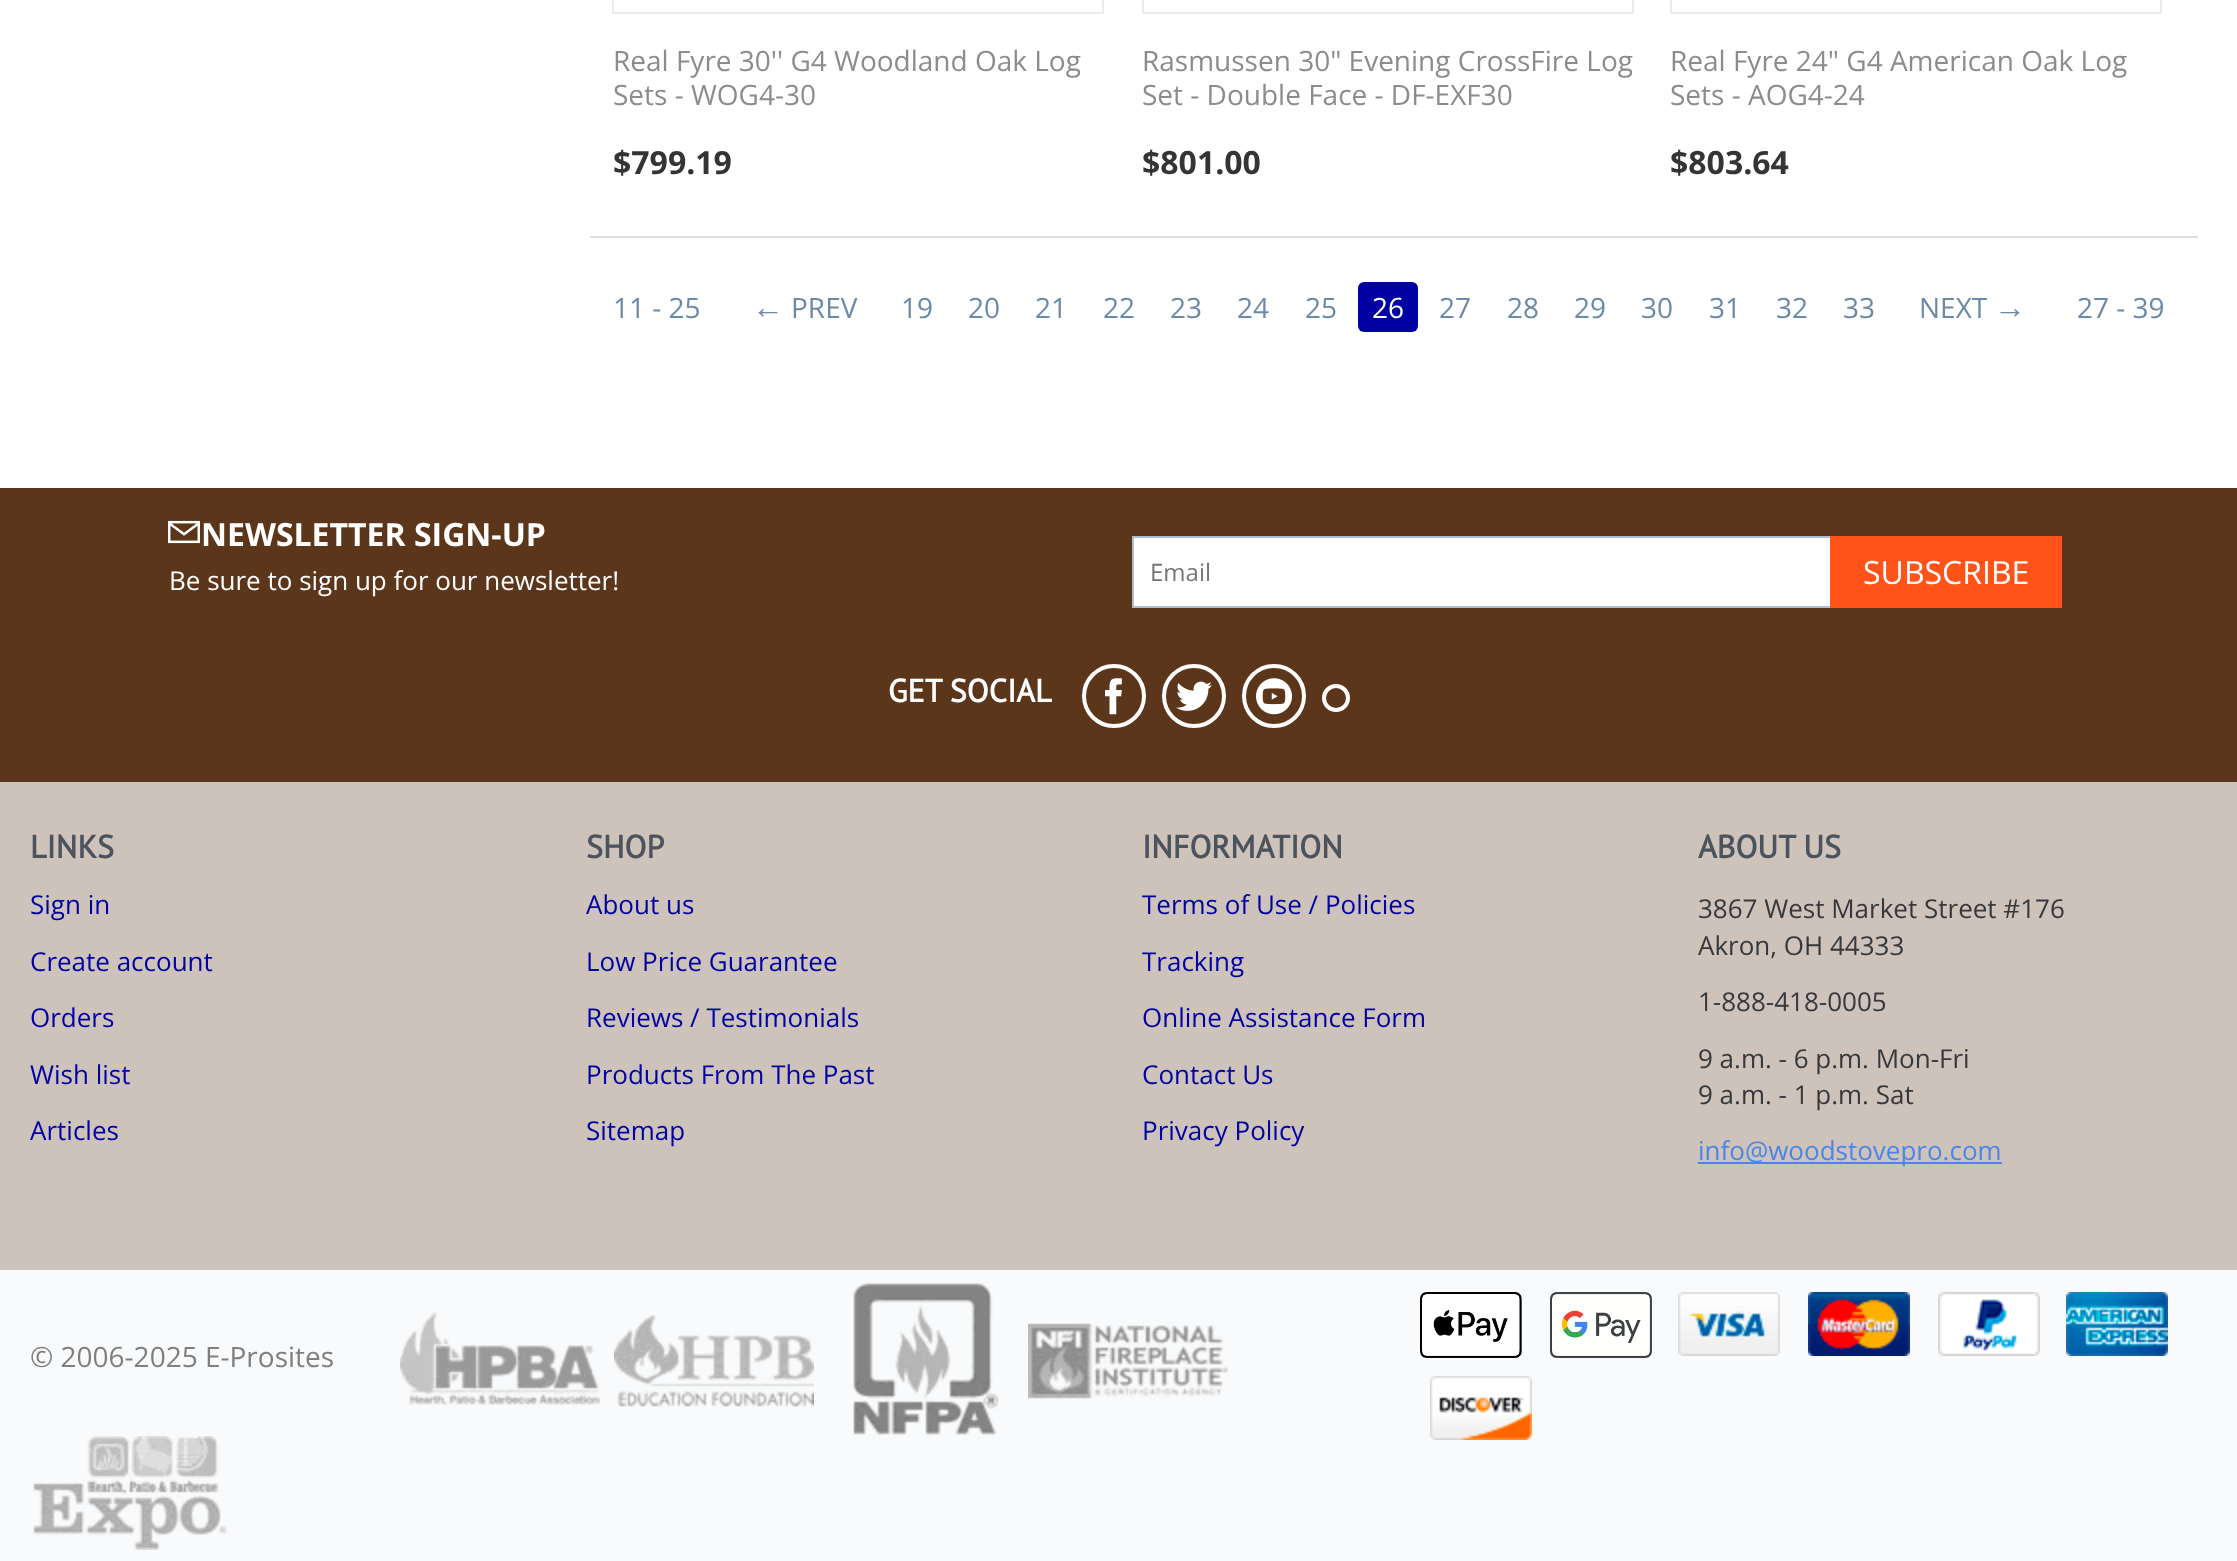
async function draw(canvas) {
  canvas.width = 2237
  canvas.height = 1561
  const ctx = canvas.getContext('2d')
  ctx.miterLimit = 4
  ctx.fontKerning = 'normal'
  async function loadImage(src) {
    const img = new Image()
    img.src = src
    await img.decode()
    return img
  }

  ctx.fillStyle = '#fff'
  ctx.fillRect(0, 0, 2237, 1561)
  ctx.strokeStyle = '#ebebeb'
  ctx.lineWidth = 2
  ctx.strokeRect(613, -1, 490, 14)
  ctx.font = '28px Open Sans'
  ctx.fillStyle = '#8d8c8c'
  ctx.fillText('Real Fyre 30\'\' G4 Woodland Oak Log', 613, 71)
  ctx.fillText('Sets - WOG4-30', 613, 105)
  ctx.font = 'bold 32px Open Sans'
  ctx.fillStyle = '#343434'
  ctx.fillText('$799.19', 613, 174)
  ctx.strokeRect(1143, -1, 490, 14)
  ctx.font = '28px Open Sans'
  ctx.fillStyle = '#8d8c8c'
  ctx.fillText('Rasmussen 30" Evening CrossFire Log', 1142, 71)
  ctx.fillText('Set - Double Face - DF-EXF30', 1142, 105)
  ctx.font = 'bold 32px Open Sans'
  ctx.fillStyle = '#343434'
  ctx.fillText('$801.00', 1142, 174)
  ctx.strokeRect(1671, -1, 490, 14)
  ctx.font = '28px Open Sans'
  ctx.fillStyle = '#8d8c8c'
  ctx.fillText('Real Fyre 24" G4 American Oak Log', 1670, 71)
  ctx.fillText('Sets - AOG4-24', 1670, 105)
  ctx.font = 'bold 32px Open Sans'
  ctx.fillStyle = '#343434'
  ctx.fillText('$803.64', 1670, 174)
  ctx.fillStyle = '#dedede'
  ctx.fillRect(590, 236, 1608, 2)
  ctx.font = '28px Open Sans'
  ctx.fillStyle = '#6c8aa7'
  ctx.fillText('11 - 25', 613, 318)
  ctx.font = '32px Liberation Serif'
  ctx.fillText('←', 752, 318)
  ctx.font = '28px Open Sans'
  ctx.fillText('PREV', 791, 318)
  ctx.fillText('19', 901, 318)
  ctx.fillText('20', 968, 318)
  ctx.fillText('21', 1035, 318)
  ctx.fillText('22', 1103, 318)
  ctx.fillText('23', 1170, 318)
  ctx.fillText('24', 1237, 318)
  ctx.fillText('25', 1305, 318)
  ctx.fillStyle = '#0000a3'
  ctx.beginPath()
  ctx.roundRect(1358, 282, 60, 50, 6)
  ctx.fill()
  ctx.fillStyle = '#fff'
  ctx.fillText('26', 1372, 318)
  ctx.fillStyle = '#6c8aa7'
  ctx.fillText('27', 1439, 318)
  ctx.fillText('28', 1507, 318)
  ctx.fillText('29', 1574, 318)
  ctx.fillText('30', 1641, 318)
  ctx.fillText('31', 1709, 318)
  ctx.fillText('32', 1776, 318)
  ctx.fillText('33', 1843, 318)
  ctx.fillText('NEXT', 1919, 318)
  ctx.font = '32px Liberation Serif'
  ctx.fillText('→', 1994, 318)
  ctx.font = '28px Open Sans'
  ctx.fillText('27 - 39', 2077, 318)
  ctx.fillStyle = '#cec3ba'
  ctx.fillRect(0, 782, 2237, 488)
  ctx.fillStyle = '#5c361b'
  ctx.fillRect(0, 488, 2237, 294)
  ctx.drawImage(await loadImage('image0.png'), 168, 520, 32, 24)
  ctx.font = 'bold 32px Open Sans'
  ctx.fillStyle = '#fff'
  ctx.fillText('NEWSLETTER SIGN-UP', 201, 546)
  ctx.font = '26px Open Sans'
  ctx.fillText('Be sure to sign up for our newsletter!', 169, 590)
  ctx.beginPath()
  ctx.rect(1133, 537, 698, 70)
  ctx.fill()
  ctx.strokeStyle = '#acbdcd'
  ctx.stroke()
  ctx.font = '24px Open Sans'
  ctx.fillStyle = '#757575'
  ctx.fillText('Email', 1150, 581)
  ctx.fillStyle = '#ff5319'
  ctx.fillRect(1830, 536, 232, 72)
  ctx.font = '32px Open Sans'
  ctx.fillStyle = '#fff'
  ctx.fillText('SUBSCRIBE', 1863, 584)
  ctx.font = 'bold 32px PT Sans'
  ctx.fillText('GET SOCIAL', 888, 702)
  ctx.beginPath()
  ctx.arc(1114, 696, 30, 0, 2 * Math.PI)
  ctx.strokeStyle = '#fff'
  ctx.lineWidth = 4
  ctx.stroke()
  ctx.drawImage(await loadImage('image1.png'), 1105, 678, 17, 37)
  ctx.beginPath()
  ctx.arc(1194, 696, 30, 0, 2 * Math.PI)
  ctx.stroke()
  ctx.drawImage(await loadImage('image2.png'), 1176, 681, 36, 30)
  ctx.beginPath()
  ctx.arc(1274, 696, 30, 0, 2 * Math.PI)
  ctx.stroke()
  ctx.drawImage(await loadImage('image3.png'), 1256, 678, 36, 37)
  ctx.beginPath()
  ctx.arc(1336, 698, 12, 0, 2 * Math.PI)
  ctx.stroke()
  ctx.fillStyle = '#4c535d'
  ctx.fillText('LINKS', 30, 858)
  ctx.font = '26px Open Sans'
  ctx.fillStyle = '#0000a3'
  ctx.fillText('Sign in', 30, 914)
  ctx.fillText('Create account', 30, 971)
  ctx.fillText('Orders', 30, 1027)
  ctx.fillText('Wish list', 30, 1084)
  ctx.fillText('Articles', 30, 1140)
  ctx.font = 'bold 32px PT Sans'
  ctx.fillStyle = '#4c535d'
  ctx.fillText('SHOP', 586, 858)
  ctx.font = '26px Open Sans'
  ctx.fillStyle = '#0000a3'
  ctx.fillText('About us', 586, 914)
  ctx.fillText('Low Price Guarantee', 586, 971)
  ctx.fillText('Reviews / Testimonials', 586, 1027)
  ctx.fillText('Products From The Past', 586, 1084)
  ctx.fillText('Sitemap', 586, 1140)
  ctx.font = 'bold 32px PT Sans'
  ctx.fillStyle = '#4c535d'
  ctx.fillText('INFORMATION', 1142, 858)
  ctx.font = '26px Open Sans'
  ctx.fillStyle = '#0000a3'
  ctx.fillText('Terms of Use / Policies', 1142, 914)
  ctx.fillText('Tracking', 1142, 971)
  ctx.fillText('Online Assistance Form', 1142, 1027)
  ctx.fillText('Contact Us', 1142, 1084)
  ctx.fillText('Privacy Policy', 1142, 1140)
  ctx.font = 'bold 32px PT Sans'
  ctx.fillStyle = '#4c535d'
  ctx.fillText('ABOUT US', 1698, 858)
  ctx.font = '26px Open Sans'
  ctx.fillStyle = '#36383b'
  ctx.fillText('3867 West Market Street #176', 1698, 918)
  ctx.fillText('Akron, OH 44333', 1698, 955)
  ctx.fillText('1-888-418-0005', 1698, 1011)
  ctx.fillText('9 a.m. - 6 p.m. Mon-Fri', 1698, 1068)
  ctx.fillText('9 a.m. - 1 p.m. Sat', 1698, 1104)
  ctx.fillStyle = '#4a86e8'
  ctx.fillRect(1698, 1162, 304, 2)
  ctx.fillText('info@woodstovepro.com', 1698, 1160)
  ctx.fillStyle = '#f8fafc'
  ctx.fillRect(0, 1270, 2237, 291)
  ctx.font = '28px Open Sans'
  ctx.fillStyle = '#7f7f7f'
  ctx.fillText('© 2006-2025 E-Prosites', 30, 1367)
  ctx.drawImage(await loadImage('image4.png'), 400, 1311, 200, 95)
  ctx.drawImage(await loadImage('image5.png'), 614, 1314, 200, 93)
  ctx.drawImage(await loadImage('image6.png'), 853, 1282, 146, 154)
  ctx.drawImage(await loadImage('image7.png'), 1028, 1323, 200, 76)
  ctx.drawImage(await loadImage('image8.png'), 33, 1436, 194, 114)
  ctx.drawImage(await loadImage('image9.png'), 1420, 1292, 102, 66)
  ctx.drawImage(await loadImage('image10.png'), 1550, 1292, 102, 66)
  ctx.drawImage(await loadImage('image11.png'), 1678, 1292, 102, 64)
  ctx.drawImage(await loadImage('image12.png'), 1808, 1292, 102, 64)
  ctx.drawImage(await loadImage('image13.png'), 1938, 1292, 102, 64)
  ctx.drawImage(await loadImage('image14.png'), 2066, 1292, 102, 64)
  ctx.drawImage(await loadImage('image15.png'), 1430, 1376, 102, 64)
}

draw(document.querySelector('canvas'))
